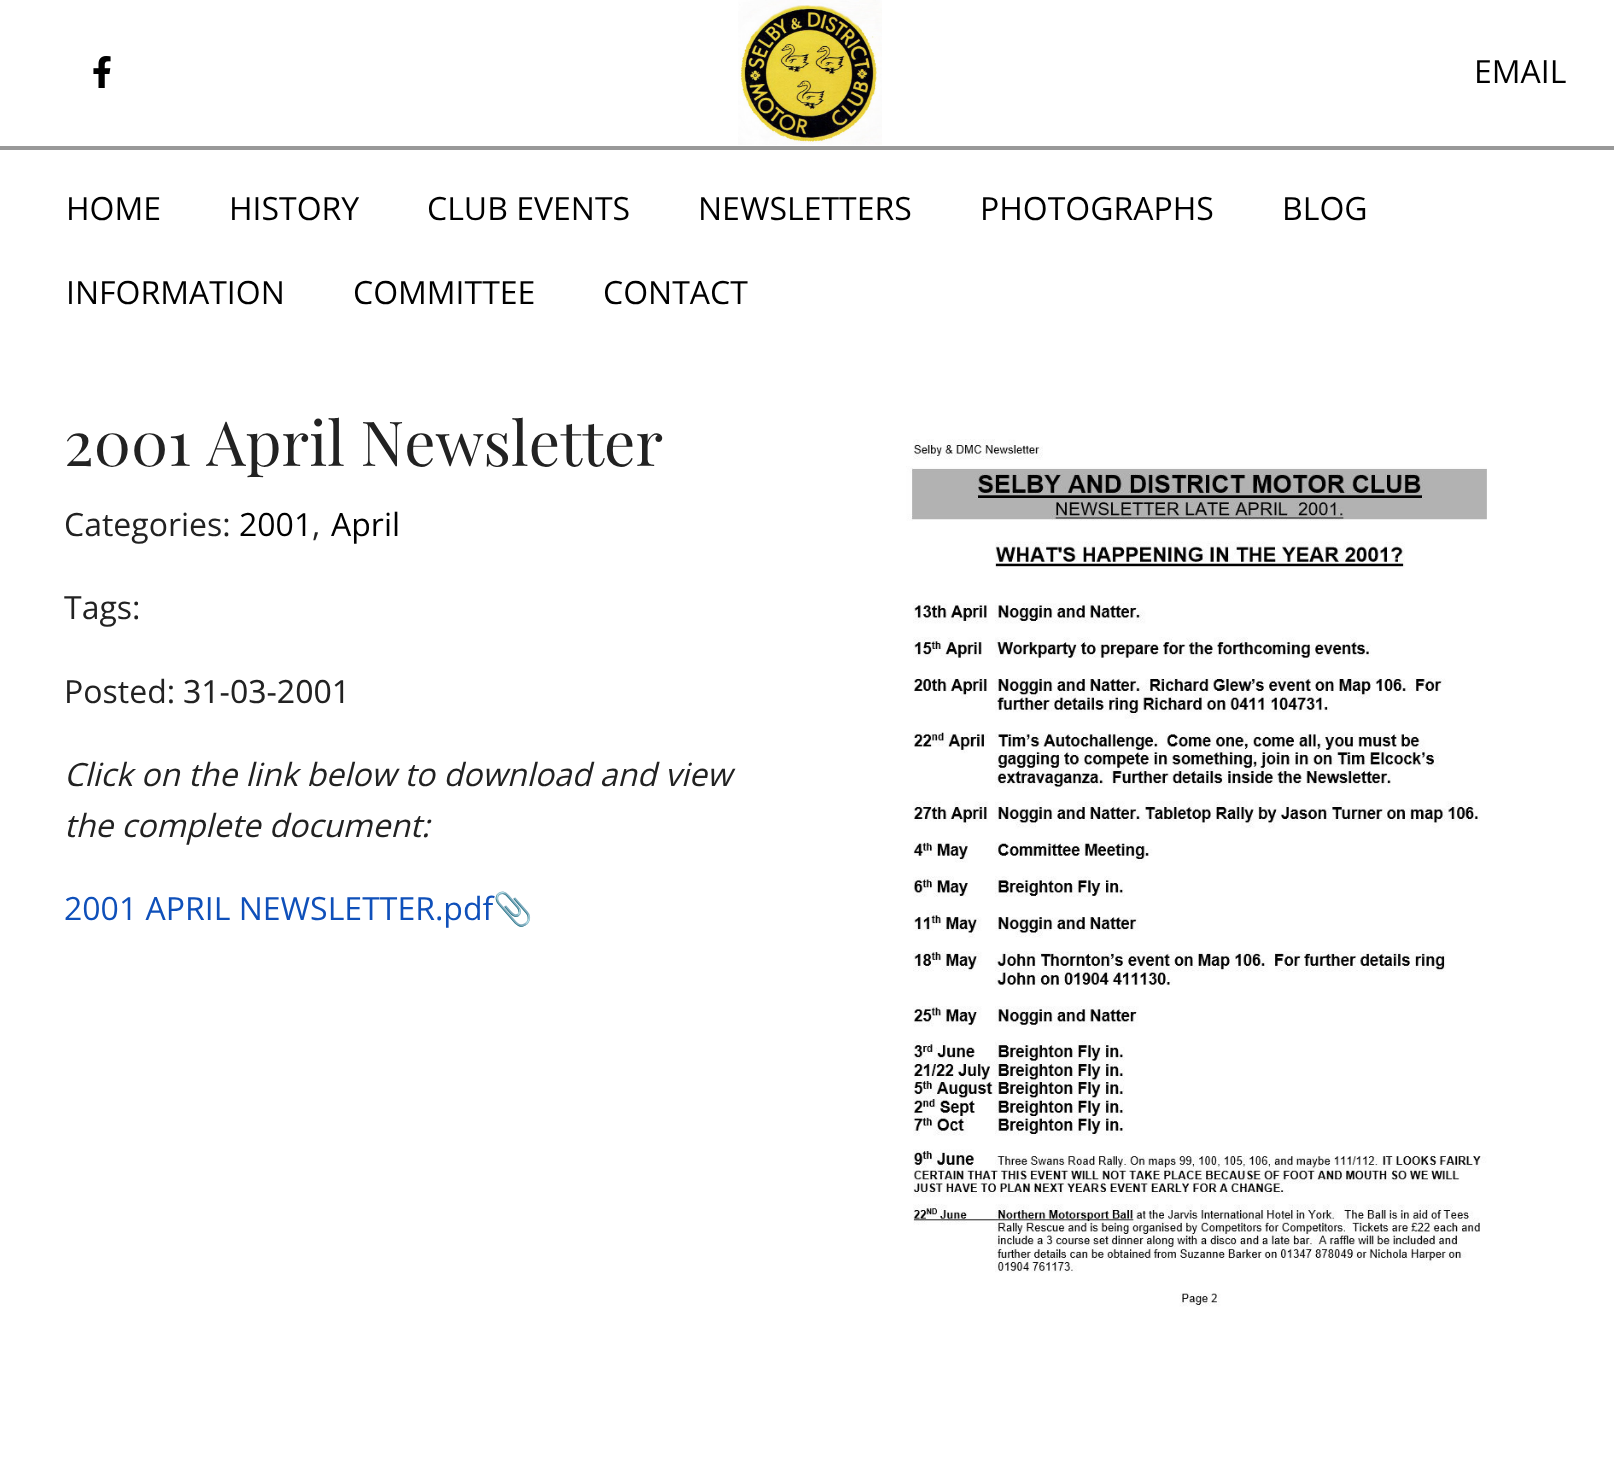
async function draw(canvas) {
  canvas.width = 1614
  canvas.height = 1475
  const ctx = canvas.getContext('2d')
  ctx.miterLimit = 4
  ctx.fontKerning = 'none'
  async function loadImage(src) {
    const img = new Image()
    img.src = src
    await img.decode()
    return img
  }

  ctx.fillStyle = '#fff'
  ctx.fillRect(0, 0, 1614, 1475)
  ctx.fillStyle = '#999'
  ctx.fillRect(0, 146, 1614, 4)
  ctx.drawImage(await loadImage('image0.png'), 93, 56, 18, 32)
  ctx.drawImage(await loadImage('image1.png'), 738, 0, 144, 145)
  ctx.font = '32px Open Sans'
  ctx.fillStyle = '#000'
  ctx.fillText('EMAIL', 1474, 83)
  ctx.fillText('HOME', 66, 220)
  ctx.fillText('HISTORY', 229, 220)
  ctx.fillText('CLUB EVENTS', 427, 220)
  ctx.fillText('NEWSLETTERS', 698, 220)
  ctx.fillText('PHOTOGRAPHS', 980, 220)
  ctx.fillText('BLOG', 1282, 220)
  ctx.fillText('INFORMATION', 66, 304)
  ctx.fillText('COMMITTEE', 353, 304)
  ctx.fillText('CONTACT', 603, 304)
  ctx.font = '62px Playfair Display'
  ctx.fillStyle = '#222'
  ctx.fillText('2001 April Newsletter', 64, 466)
  ctx.font = '32px Open Sans'
  ctx.fillText('Categories:', 64, 536)
  ctx.fillStyle = '#000'
  ctx.fillText('2001', 239, 536)
  ctx.fillStyle = '#222'
  ctx.fillText(',', 312, 536)
  ctx.fillStyle = '#000'
  ctx.fillText('April', 331, 536)
  ctx.fillStyle = '#222'
  ctx.fillText('Tags:', 64, 619)
  ctx.fillText('Posted:', 64, 703)
  ctx.font = '32px Noto Sans'
  ctx.fillText('31-03-2001', 183, 703)
  ctx.font = 'italic 32px Open Sans'
  ctx.fillText('Click on the link below to download and view', 64, 786)
  ctx.fillText('the complete document:', 64, 837)
  ctx.font = '32px Open Sans'
  ctx.fillStyle = '#0f50ba'
  ctx.fillText('2001 APRIL NEWSLETTER.pdf', 64, 920)
  ctx.font = '32px Noto Color Emoji'
  ctx.fillText('📎', 493, 920)
  ctx.drawImage(await loadImage('image2.png'), 906, 439, 581, 868)
}

draw(document.querySelector('canvas'))
